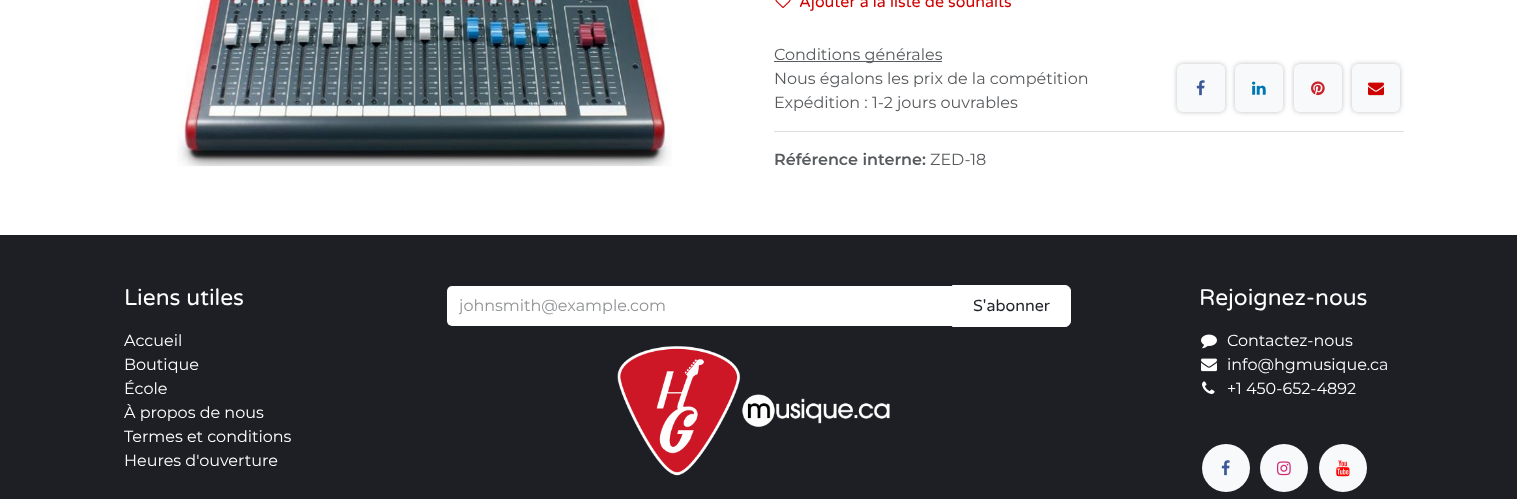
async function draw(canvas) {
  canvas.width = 1517
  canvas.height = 499
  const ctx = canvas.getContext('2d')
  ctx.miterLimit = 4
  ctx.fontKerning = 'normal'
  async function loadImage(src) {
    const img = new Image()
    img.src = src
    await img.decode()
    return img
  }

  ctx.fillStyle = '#fff'
  ctx.fillRect(0, 0, 1517, 499)
  ctx.drawImage(await loadImage('image0.png'), 177, 0, 495, 167)
  ctx.drawImage(await loadImage('image1.png'), 775, 0, 16, 9)
  ctx.font = '16px Varela Round'
  ctx.fillStyle = '#ce0000'
  ctx.fillText('Ajouter à la liste de souhaits', 799, 7)
  ctx.fillStyle = '#595c5f'
  ctx.fillRect(774, 61, 168, 1)
  ctx.font = '16px Montserrat'
  ctx.fillStyle = '#585b5e'
  ctx.fillText('Conditions générales', 774, 60)
  ctx.fillText('Nous égalons les prix de la compétition', 774, 84)
  ctx.fillText('Expédition : 1-2 jours ouvrables', 774, 108)
  ctx.fillStyle = '#00000040'
  ctx.filter = 'blur(2.5px)'
  ctx.beginPath()
  ctx.roundRect(1177, 64, 48, 48, 6)
  ctx.fill()
  ctx.filter = 'none'
  ctx.fillStyle = '#f8f9fa'
  ctx.beginPath()
  ctx.roundRect(1177, 64, 48, 48, 6)
  ctx.fill()
  ctx.drawImage(await loadImage('image2.png'), 1196, 80, 9, 16)
  ctx.fillStyle = '#00000040'
  ctx.filter = 'blur(2.5px)'
  ctx.beginPath()
  ctx.roundRect(1235, 64, 48, 48, 6)
  ctx.fill()
  ctx.filter = 'none'
  ctx.fillStyle = '#f8f9fa'
  ctx.beginPath()
  ctx.roundRect(1235, 64, 48, 48, 6)
  ctx.fill()
  ctx.drawImage(await loadImage('image3.png'), 1252, 81, 14, 14)
  ctx.fillStyle = '#00000040'
  ctx.filter = 'blur(2.5px)'
  ctx.beginPath()
  ctx.roundRect(1294, 64, 48, 48, 6)
  ctx.fill()
  ctx.filter = 'none'
  ctx.fillStyle = '#f8f9fa'
  ctx.beginPath()
  ctx.roundRect(1294, 64, 48, 48, 6)
  ctx.fill()
  ctx.drawImage(await loadImage('image4.png'), 1311, 81, 14, 15)
  ctx.fillStyle = '#00000040'
  ctx.filter = 'blur(2.5px)'
  ctx.beginPath()
  ctx.roundRect(1352, 64, 48, 48, 6)
  ctx.fill()
  ctx.filter = 'none'
  ctx.fillStyle = '#f8f9fa'
  ctx.beginPath()
  ctx.roundRect(1352, 64, 48, 48, 6)
  ctx.fill()
  ctx.drawImage(await loadImage('image5.png'), 1368, 82, 16, 14)
  ctx.fillStyle = '#dededf'
  ctx.fillRect(774, 131, 630, 1)
  ctx.font = '600 16px Montserrat'
  ctx.fillStyle = '#585b5e'
  ctx.fillText('Référence interne:', 774, 165)
  ctx.font = '16px Montserrat'
  ctx.fillText('ZED-18', 930, 165)
  ctx.fillStyle = '#1d1f25'
  ctx.fillRect(0, 235, 1517, 264)
  ctx.font = '22.75px Varela Round'
  ctx.fillStyle = '#fff'
  ctx.fillText('Liens utiles', 124, 305)
  ctx.font = '16px Montserrat'
  ctx.fillText('Accueil', 124, 346)
  ctx.fillText('Boutique', 124, 370)
  ctx.fillText('École', 124, 394)
  ctx.fillText('À propos de nous', 124, 418)
  ctx.fillText('Termes et conditions', 124, 442)
  ctx.fillText('Heures d\'ouverture', 124, 466)
  ctx.beginPath()
  ctx.roundRect(447, 286, 505, 40, [5, 0, 0, 5])
  ctx.fill()
  ctx.beginPath()
  ctx.roundRect(446.5, 285.5, 506, 41, [5.5, 0, 0, 5.5])
  ctx.strokeStyle = '#21252926'
  ctx.stroke()
  ctx.save()
  ctx.beginPath()
  ctx.rect(459, 296, 481, 19)
  ctx.clip()
  ctx.fillStyle = '#909294'
  ctx.fillText('johnsmith@example.com', 459, 311)
  ctx.restore()
  ctx.beginPath()
  ctx.roundRect(952.5, 285.5, 118, 41, [0, 5.5, 5.5, 0])
  ctx.fill()
  ctx.strokeStyle = '#fff'
  ctx.stroke()
  ctx.font = '16px Varela Round'
  ctx.fillStyle = '#212529'
  ctx.fillText('S\'abonner', 973, 311)
  ctx.drawImage(await loadImage('image6.png'), 617, 346, 273, 130)
  ctx.font = '22.75px Varela Round'
  ctx.fillStyle = '#fff'
  ctx.fillText('Rejoignez-nous', 1199, 305)
  ctx.drawImage(await loadImage('image7.png'), 1201, 334, 16, 15)
  ctx.font = '16px Montserrat'
  ctx.fillText('Contactez-nous', 1227, 346)
  ctx.drawImage(await loadImage('image8.png'), 1201, 358, 16, 14)
  ctx.fillText('info@hgmusique.c', 1227, 370)
  ctx.fillStyle = '#f1f2f4'
  ctx.fillText('a', 1379, 370)
  ctx.drawImage(await loadImage('image9.png'), 1202, 381, 13, 13)
  ctx.fillStyle = '#fff'
  ctx.fillText('+1 450-652-4892', 1227, 394)
  ctx.fillStyle = '#f8f9fa'
  ctx.beginPath()
  ctx.arc(1226, 468, 24, 0, 2 * Math.PI)
  ctx.fill()
  ctx.drawImage(await loadImage('image2.png'), 1221, 460, 9, 16)
  ctx.beginPath()
  ctx.arc(1284, 468, 24, 0, 2 * Math.PI)
  ctx.fill()
  ctx.drawImage(await loadImage('image10.png'), 1277, 461, 14, 15)
  ctx.beginPath()
  ctx.arc(1343, 468, 24, 0, 2 * Math.PI)
  ctx.fill()
  ctx.drawImage(await loadImage('image11.png'), 1336, 460, 14, 17)
}

draw(document.querySelector('canvas'))
